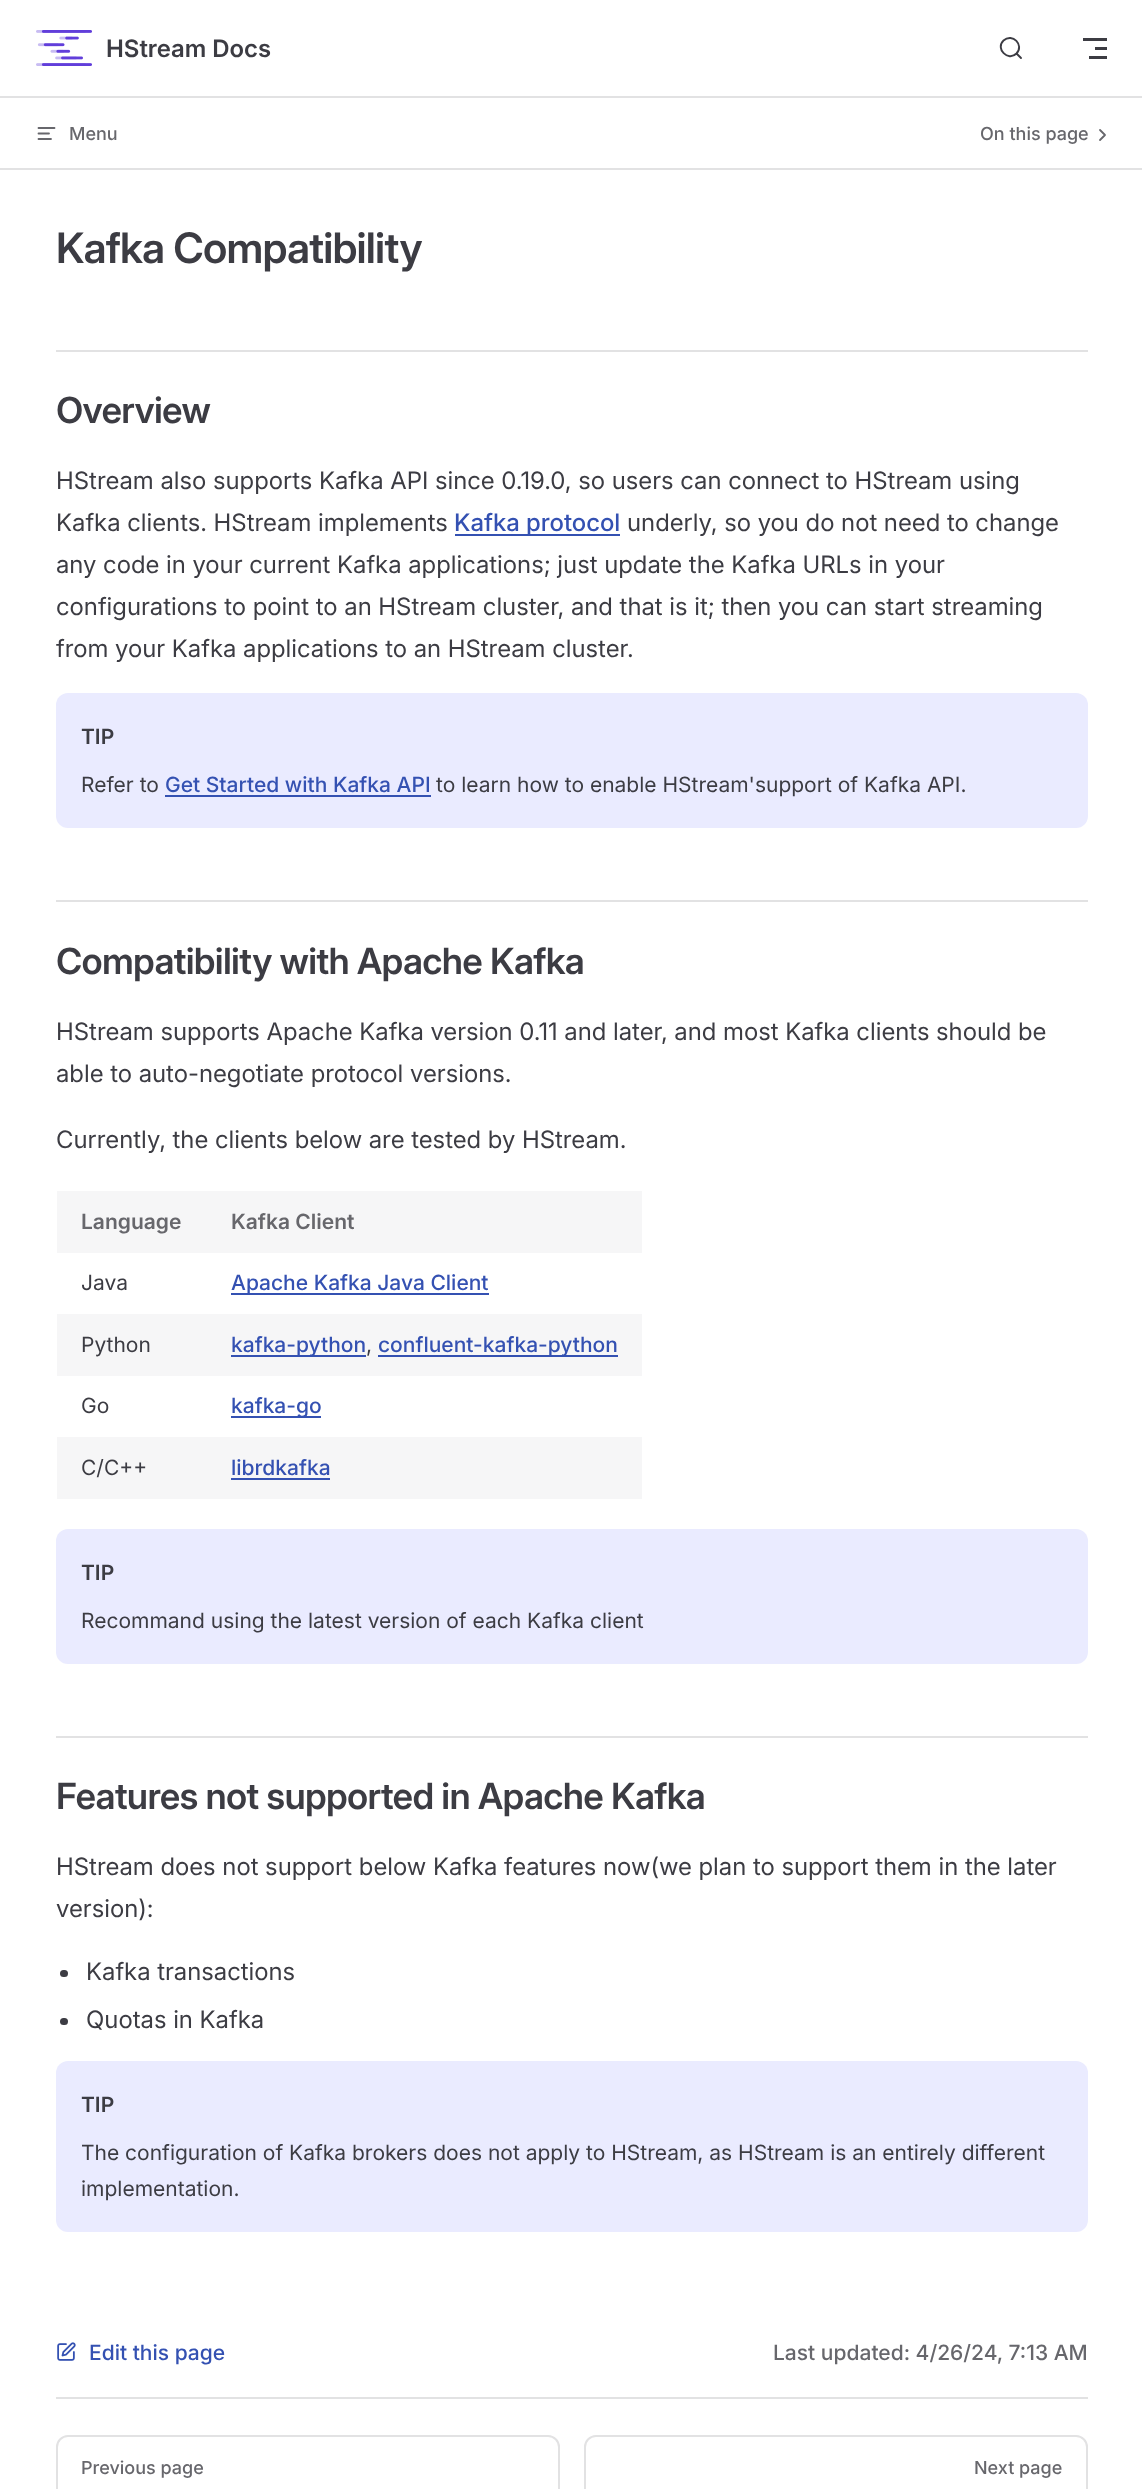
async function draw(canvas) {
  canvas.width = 1142
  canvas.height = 2489
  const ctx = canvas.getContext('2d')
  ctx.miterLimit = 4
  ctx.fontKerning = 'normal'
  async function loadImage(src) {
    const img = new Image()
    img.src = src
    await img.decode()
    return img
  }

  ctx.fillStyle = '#fff'
  ctx.fillRect(0, 0, 1142, 2489)
  ctx.fillStyle = '#e2e2e3'
  ctx.fillRect(0, 96, 1142, 2)
  ctx.drawImage(await loadImage('image0.png'), 36, 30, 56, 36)
  ctx.font = '600 24px "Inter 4"'
  ctx.fillStyle = '#3c3c43'
  ctx.fillText('HStream Docs', 106, 57)
  ctx.beginPath()
  ctx.moveTo(1016.5, 53.5)
  ctx.lineTo(1021, 58)
  ctx.lineTo(1016.5, 53.5)
  ctx.bezierCurveTo(1008, 62, 995, 48.5, 1003.5, 40.5)
  ctx.bezierCurveTo(1012.5, 32.5, 1024.5, 45, 1016.5, 53.5)
  ctx.closePath()
  ctx.strokeStyle = '#3c3c43'
  ctx.lineWidth = 1.9
  ctx.lineCap = 'round'
  ctx.lineJoin = 'round'
  ctx.stroke()
  ctx.fillRect(1083, 38, 24, 3)
  ctx.fillRect(1095, 47, 12, 3)
  ctx.fillRect(1089, 56, 18, 3)
  ctx.fillStyle = '#e2e2e3'
  ctx.fillRect(0, 168, 1142, 2)
  ctx.beginPath()
  ctx.moveTo(54.5, 128)
  ctx.lineTo(38.5, 128)
  ctx.moveTo(49, 133.5)
  ctx.lineTo(38.5, 133.5)
  ctx.moveTo(51, 139)
  ctx.lineTo(38.5, 139)
  ctx.strokeStyle = '#67676c'
  ctx.lineWidth = 1.8
  ctx.stroke()
  ctx.font = '500 18px Inter'
  ctx.fillStyle = '#67676c'
  ctx.fillText('Menu', 69, 140)
  ctx.fillText('On this page', 980, 140)
  ctx.beginPath()
  ctx.moveTo(1100, 140)
  ctx.lineTo(1105, 135)
  ctx.lineTo(1100, 130)
  ctx.stroke()
  ctx.letterSpacing = '-0.8px'
  ctx.font = '600 42px "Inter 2"'
  ctx.fillStyle = '#3c3c43'
  ctx.fillText('Kafka Compatibility', 56, 263)
  ctx.fillStyle = '#e2e2e3'
  ctx.fillRect(56, 350, 1032, 2)
  ctx.letterSpacing = '-0.7px'
  ctx.font = '600 36px "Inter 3"'
  ctx.fillStyle = '#3c3c43'
  ctx.fillText('Overview', 56, 423)
  ctx.letterSpacing = '0px'
  ctx.font = '24px Inter'
  ctx.fillText('HStream also supports Kafka API since 0.19.0, so users can connect to HStream using', 56, 489)
  ctx.fillText('Kafka clients. HStream implements', 56, 531)
  ctx.fillStyle = '#3451b2'
  ctx.fillRect(455, 534, 165, 2)
  ctx.font = '500 24px "Inter 2"'
  ctx.fillText('Kafka protocol', 454, 531)
  ctx.font = '24px Inter'
  ctx.fillStyle = '#3c3c43'
  ctx.fillText('underly, so you do not need to change', 627, 531)
  ctx.fillText('any code in your current Kafka applications; just update the Kafka URLs in your', 56, 573)
  ctx.fillText('configurations to point to an HStream cluster, and that is it; then you can start streaming', 56, 615)
  ctx.fillText('from your Kafka applications to an HStream cluster.', 56, 657)
  ctx.fillStyle = '#eaebff'
  ctx.beginPath()
  ctx.roundRect(56, 693, 1032, 135, 12)
  ctx.fill()
  ctx.font = '600 21px Inter'
  ctx.fillStyle = '#3c3c43'
  ctx.fillText('TIP', 81, 744)
  ctx.font = '21px "Inter 2"'
  ctx.fillText('Refer to', 81, 792)
  ctx.font = '500 21px Inter'
  ctx.fillStyle = '#3451b2'
  ctx.fillText('Get Started with Kafka API', 165, 792)
  ctx.fillRect(165, 795, 266, 2)
  ctx.font = '21px "Inter 2"'
  ctx.fillStyle = '#3c3c43'
  ctx.fillText('to learn how to enable HStream\'support of Kafka API.', 436, 792)
  ctx.fillStyle = '#e2e2e3'
  ctx.fillRect(56, 900, 1032, 2)
  ctx.letterSpacing = '-0.7px'
  ctx.font = '600 36px "Inter 3"'
  ctx.fillStyle = '#3c3c43'
  ctx.fillText('Compatibility with Apache Kafka', 56, 974)
  ctx.letterSpacing = '0px'
  ctx.font = '24px Inter'
  ctx.fillText('HStream supports Apache Kafka version 0.11 and later, and most Kafka clients should be', 56, 1040)
  ctx.fillText('able to auto-negotiate protocol versions.', 56, 1082)
  ctx.fillText('Currently, the clients below are tested by HStream.', 56, 1148)
  ctx.fillStyle = '#f6f6f7'
  ctx.fillRect(57, 1191, 585, 62)
  ctx.font = '600 21px Inter'
  ctx.fillStyle = '#67676c'
  ctx.fillText('Language', 81, 1229)
  ctx.fillText('Kafka Client', 231, 1229)
  ctx.font = '21px "Inter 2"'
  ctx.fillStyle = '#3c3c43'
  ctx.fillText('Java', 81, 1290)
  ctx.fillStyle = '#3451b2'
  ctx.fillRect(231, 1293, 258, 2)
  ctx.font = '500 21px Inter'
  ctx.fillText('Apache Kafka Java Client', 231, 1290)
  ctx.fillStyle = '#f6f6f7'
  ctx.fillRect(57, 1314, 585, 62)
  ctx.font = '21px "Inter 2"'
  ctx.fillStyle = '#3c3c43'
  ctx.fillText('Python', 81, 1352)
  ctx.fillStyle = '#3451b2'
  ctx.fillRect(231, 1355, 135, 2)
  ctx.font = '500 21px Inter'
  ctx.fillText('kafka-python', 231, 1352)
  ctx.font = '21px "Inter 2"'
  ctx.fillStyle = '#3c3c43'
  ctx.fillText(',', 366, 1352)
  ctx.fillStyle = '#3451b2'
  ctx.fillRect(378, 1355, 240, 2)
  ctx.font = '500 21px Inter'
  ctx.fillText('confluent-kafka-python', 378, 1352)
  ctx.font = '21px "Inter 2"'
  ctx.fillStyle = '#3c3c43'
  ctx.fillText('Go', 81, 1413)
  ctx.fillStyle = '#3451b2'
  ctx.fillRect(231, 1416, 90, 2)
  ctx.font = '500 21px Inter'
  ctx.fillText('kafka-go', 231, 1413)
  ctx.fillStyle = '#f6f6f7'
  ctx.fillRect(57, 1437, 585, 62)
  ctx.font = '21px "Inter 2"'
  ctx.fillStyle = '#3c3c43'
  ctx.fillText('C/C++', 81, 1475)
  ctx.font = '500 21px Inter'
  ctx.fillStyle = '#3451b2'
  ctx.fillText('librdkafka', 231, 1475)
  ctx.fillRect(231, 1478, 99, 2)
  ctx.fillStyle = '#eaebff'
  ctx.beginPath()
  ctx.roundRect(56, 1529, 1032, 135, 12)
  ctx.fill()
  ctx.font = '600 21px Inter'
  ctx.fillStyle = '#3c3c43'
  ctx.fillText('TIP', 81, 1580)
  ctx.font = '21px "Inter 2"'
  ctx.fillText('Recommand using the latest version of each Kafka client', 81, 1628)
  ctx.fillStyle = '#e2e2e3'
  ctx.fillRect(56, 1736, 1032, 2)
  ctx.letterSpacing = '-0.7px'
  ctx.font = '600 36px "Inter 3"'
  ctx.fillStyle = '#3c3c43'
  ctx.fillText('Features not supported in Apache Kafka', 56, 1809)
  ctx.letterSpacing = '0px'
  ctx.font = '24px Inter'
  ctx.fillText('HStream does not support below Kafka features now(we plan to support them in the later', 56, 1875)
  ctx.fillText('version):', 56, 1917)
  ctx.beginPath()
  ctx.roundRect(60, 1970, 8, 7, 3.5)
  ctx.fill()
  ctx.fillText('Kafka transactions', 86, 1980)
  ctx.beginPath()
  ctx.roundRect(60, 2018, 8, 7, 3.5)
  ctx.fill()
  ctx.fillText('Quotas in Kafka', 86, 2028)
  ctx.fillStyle = '#eaebff'
  ctx.beginPath()
  ctx.roundRect(56, 2061, 1032, 171, 12)
  ctx.fill()
  ctx.font = '600 21px Inter'
  ctx.fillStyle = '#3c3c43'
  ctx.fillText('TIP', 81, 2112)
  ctx.font = '21px "Inter 2"'
  ctx.fillText('The configuration of Kafka brokers does not apply to HStream, as HStream is an entirely different', 81, 2160)
  ctx.fillText('implementation.', 81, 2196)
  ctx.drawImage(await loadImage('image1.png'), 57, 2342, 19, 19)
  ctx.font = '500 21px Inter'
  ctx.fillStyle = '#3451b2'
  ctx.fillText('Edit this page', 89, 2360)
  ctx.fillStyle = '#67676c'
  ctx.fillText('Last updated: 4/26/24, 7:13 AM', 773, 2360)
  ctx.fillStyle = '#e2e2e3'
  ctx.fillRect(56, 2397, 1032, 2)
  ctx.beginPath()
  ctx.roundRect(57, 2436, 502, 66, 11)
  ctx.strokeStyle = '#e2e2e3'
  ctx.lineWidth = 2
  ctx.lineJoin = 'miter'
  ctx.stroke()
  ctx.font = '500 18px Inter'
  ctx.fillStyle = '#67676c'
  ctx.fillText('Previous page', 81, 2474)
  ctx.beginPath()
  ctx.roundRect(585, 2436, 502, 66, 11)
  ctx.stroke()
  ctx.fillText('Next page', 974, 2474)
}

draw(document.querySelector('canvas'))
